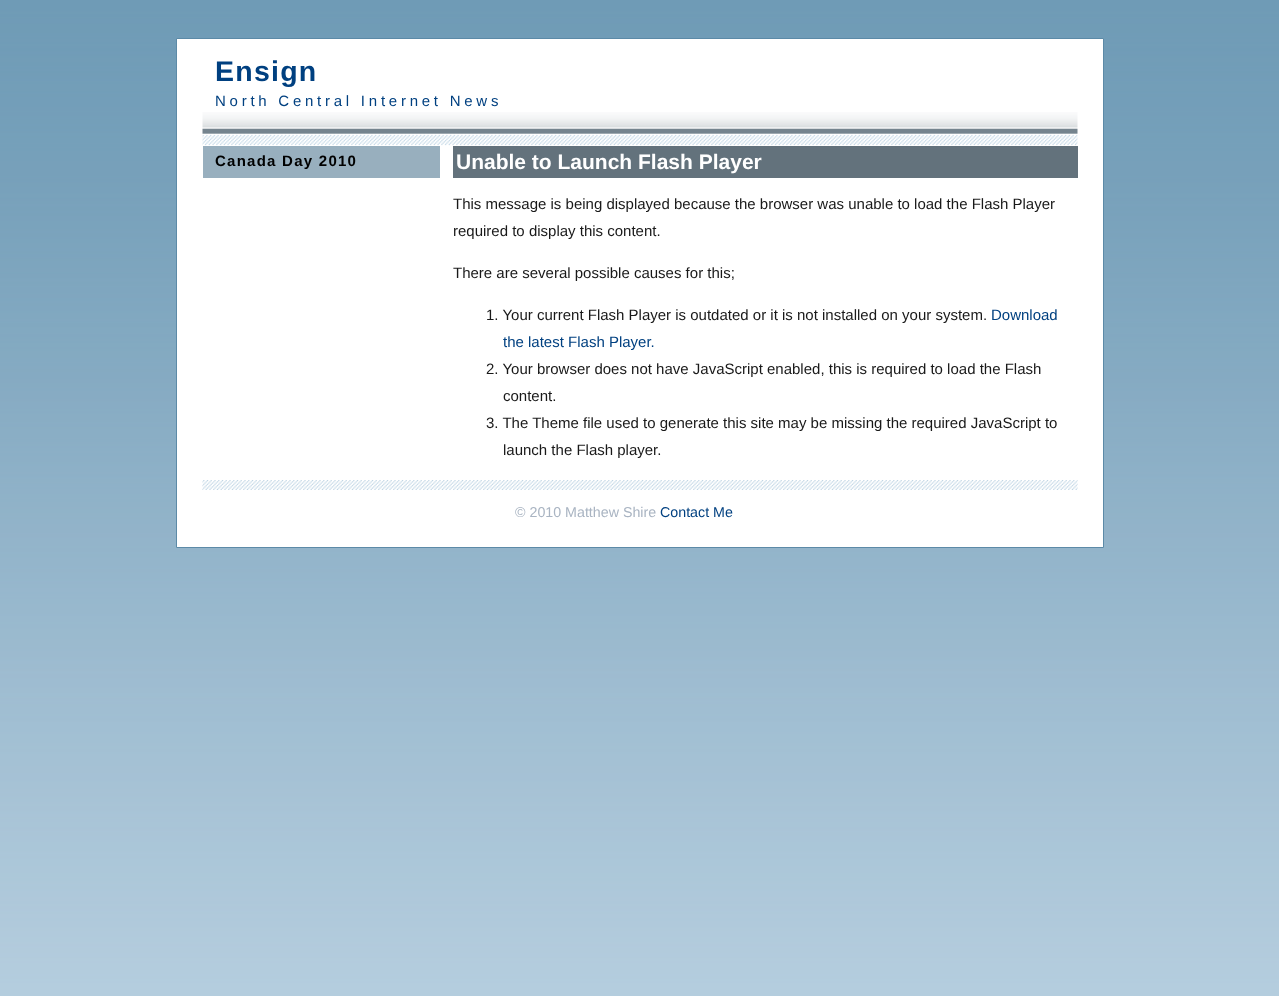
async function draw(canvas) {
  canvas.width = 1279
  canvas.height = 996
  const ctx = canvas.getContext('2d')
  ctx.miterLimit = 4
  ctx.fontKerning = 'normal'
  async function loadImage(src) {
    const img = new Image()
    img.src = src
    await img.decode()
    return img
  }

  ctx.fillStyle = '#fff'
  ctx.fillRect(0, 0, 1279, 996)
  ctx.drawImage(await loadImage('image0.png'), 0, 0, 1279, 996)
  ctx.beginPath()
  ctx.rect(176.5, 38.5, 927, 509)
  ctx.fill()
  ctx.strokeStyle = '#5c8aa7'
  ctx.stroke()
  ctx.drawImage(await loadImage('image1.png'), 202, 112, 876, 34)
  ctx.letterSpacing = '1.25px'
  ctx.font = 'bold 28.5px Liberation Sans'
  ctx.fillStyle = '#004080'
  ctx.fillText('Ensign', 215, 81)
  ctx.letterSpacing = '3.75px'
  ctx.font = '15px Liberation Sans'
  ctx.fillText('North Central Internet News', 215, 106)
  ctx.fillStyle = '#98afbe'
  ctx.fillRect(203, 146, 237, 32)
  ctx.letterSpacing = '1.25px'
  ctx.font = 'bold 15px Liberation Sans'
  ctx.fillStyle = '#000'
  ctx.fillText('Canada Day 2010', 215, 166)
  ctx.fillStyle = '#63727c'
  ctx.fillRect(453, 146, 625, 32)
  ctx.letterSpacing = '0px'
  ctx.font = 'bold 21px Liberation Sans'
  ctx.fillStyle = '#fff'
  ctx.fillText('Unable to Launch Flash Player', 456, 169)
  ctx.font = '15px Liberation Sans'
  ctx.fillStyle = '#191919'
  ctx.fillText('This message is being displayed because the browser was unable to load the Flash Player', 453, 209)
  ctx.fillText('required to display this content.', 453, 236)
  ctx.fillText('There are several possible causes for this;', 453, 278)
  ctx.fillText('1. Your current Flash Player is outdated or it is not installed on your system.', 486, 320)
  ctx.fillStyle = '#004080'
  ctx.fillText('Download', 991, 320)
  ctx.fillText('the latest Flash Player.', 503, 347)
  ctx.fillStyle = '#191919'
  ctx.fillText('2. Your browser does not have JavaScript enabled, this is required to load the Flash', 486, 374)
  ctx.fillText('content.', 503, 401)
  ctx.fillText('3. The Theme file used to generate this site may be missing the required JavaScript to', 486, 428)
  ctx.fillText('launch the Flash player.', 503, 455)
  ctx.drawImage(await loadImage('image2.png'), 202, 480, 876, 10)
  ctx.font = '14.25px Liberation Sans'
  ctx.fillStyle = '#a9b4c2'
  ctx.fillText('© 2010 Matthew Shire', 515, 517)
  ctx.fillStyle = '#004080'
  ctx.fillText('Contact Me', 660, 517)
}

draw(document.querySelector('canvas'))
